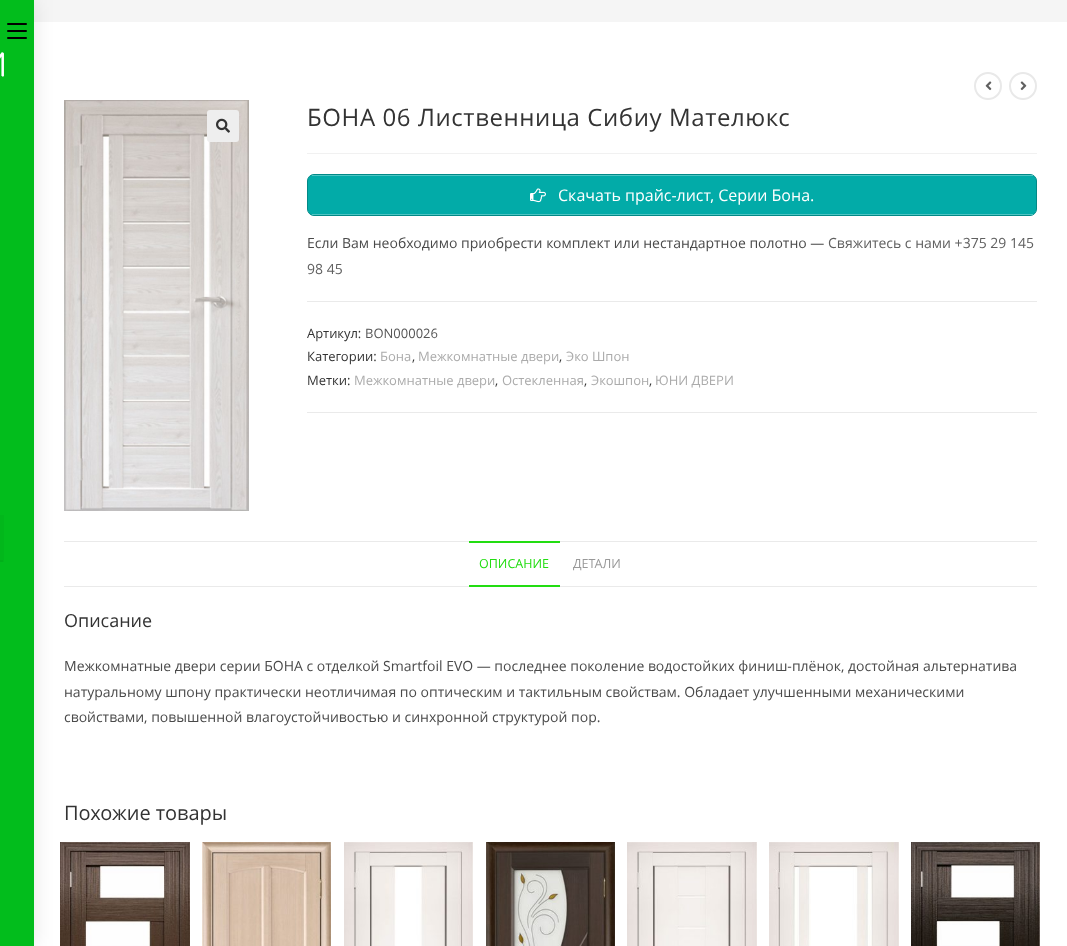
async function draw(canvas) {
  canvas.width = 1067
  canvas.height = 946
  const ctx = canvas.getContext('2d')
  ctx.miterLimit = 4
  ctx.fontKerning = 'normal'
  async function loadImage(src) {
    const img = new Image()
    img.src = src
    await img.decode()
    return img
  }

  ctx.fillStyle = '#fff'
  ctx.fillRect(0, 0, 1067, 946)
  ctx.fillStyle = '#f5f5f5'
  ctx.fillRect(34, 0, 1033, 22)
  ctx.drawImage(await loadImage('image3.png'), 64, 100, 185, 411)
  ctx.fillStyle = '#eaeaea'
  ctx.fillRect(64, 541, 973, 1)
  ctx.fillRect(64, 586, 973, 1)
  ctx.drawImage(await loadImage('image6.png'), 60, 842, 130, 104)
  ctx.fillStyle = '#0000001a'
  ctx.filter = 'blur(10px)'
  ctx.beginPath()
  ctx.rect(-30, 0, 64, 946)
  ctx.fill()
  ctx.filter = 'none'
  ctx.fillStyle = '#02bd1c'
  ctx.fillRect(0, 0, 34, 946)
  ctx.fillStyle = '#000'
  ctx.beginPath()
  ctx.roundRect(7, 30, 20, 2, 1)
  ctx.fill()
  ctx.beginPath()
  ctx.roundRect(7, 23, 20, 2, 1)
  ctx.fill()
  ctx.beginPath()
  ctx.roundRect(7, 37, 20, 2, 1)
  ctx.fill()
  ctx.drawImage(await loadImage('image0.png'), 0, 52, 4, 25)
  ctx.fillStyle = '#02b71b'
  ctx.fillRect(0, 515, 4, 47)
  ctx.fillStyle = '#02b01a'
  ctx.fillRect(0, 560, 3, 2)
  ctx.beginPath()
  ctx.arc(988, 86, 13, 0, 2 * Math.PI)
  ctx.strokeStyle = '#e9e9e9'
  ctx.lineWidth = 2
  ctx.stroke()
  ctx.drawImage(await loadImage('image1.png'), 985, 81, 7, 10)
  ctx.beginPath()
  ctx.arc(1023, 86, 13, 0, 2 * Math.PI)
  ctx.stroke()
  ctx.drawImage(await loadImage('image2.png'), 1020, 81, 7, 10)
  ctx.fillStyle = '#eee'
  ctx.beginPath()
  ctx.roundRect(207, 110, 32, 32, 3)
  ctx.fill()
  ctx.drawImage(await loadImage('image4.png'), 216, 118, 14, 15)
  ctx.fillStyle = '#f1f1f1'
  ctx.fillRect(307, 153, 730, 1)
  ctx.letterSpacing = '0.6px'
  ctx.font = '24px Open Sans'
  ctx.fillStyle = '#333'
  ctx.fillText('БОНА 06 Лиственница Сибиу Мателюкс', 307, 126)
  ctx.fillStyle = '#02aba8'
  ctx.beginPath()
  ctx.roundRect(307.5, 174.5, 729, 41, 6.5)
  ctx.fill()
  ctx.strokeStyle = '#028987'
  ctx.lineWidth = 1
  ctx.stroke()
  ctx.fillStyle = '#4ec5c3'
  ctx.fillRect(312, 175, 721, 1)
  ctx.fillRect(312, 214, 721, 1)
  ctx.drawImage(await loadImage('image5.png'), 530, 188, 16, 15)
  ctx.letterSpacing = '0px'
  ctx.font = '16px Open Sans'
  ctx.fillStyle = '#fff'
  ctx.fillText('Скачать прайс-лист, Серии Бона.', 558, 201)
  ctx.font = '14px Open Sans'
  ctx.fillStyle = '#4a4a4a'
  ctx.fillText('Если Вам необходимо приобрести комплект или нестандартное полотно —', 307, 248)
  ctx.fillStyle = '#606060'
  ctx.fillText('Свяжитесь с нами +375 29 145', 828, 248)
  ctx.fillText('98 45', 307, 274)
  ctx.fillStyle = '#eaeaea'
  ctx.fillRect(307, 301, 730, 1)
  ctx.fillRect(307, 412, 730, 1)
  ctx.font = '13px Open Sans'
  ctx.fillStyle = '#333'
  ctx.fillText('Артикул:', 307, 338)
  ctx.fillStyle = '#555'
  ctx.fillText('BON000026', 365, 338)
  ctx.fillStyle = '#333'
  ctx.fillText('Категории:', 307, 361)
  ctx.fillStyle = '#ababab'
  ctx.fillText('Бона', 380, 361)
  ctx.fillStyle = '#333'
  ctx.fillText(',', 412, 361)
  ctx.fillStyle = '#ababab'
  ctx.fillText('Межкомнатные двери', 418, 361)
  ctx.fillStyle = '#333'
  ctx.fillText(',', 559, 361)
  ctx.fillStyle = '#ababab'
  ctx.fillText('Эко Шпон', 566, 361)
  ctx.fillStyle = '#333'
  ctx.fillText('Метки:', 307, 385)
  ctx.fillStyle = '#ababab'
  ctx.fillText('Межкомнатные двери', 354, 385)
  ctx.fillStyle = '#333'
  ctx.fillText(',', 495, 385)
  ctx.fillStyle = '#ababab'
  ctx.fillText('Остекленная', 502, 385)
  ctx.fillStyle = '#333'
  ctx.fillText(',', 584, 385)
  ctx.fillStyle = '#ababab'
  ctx.fillText('Экошпон', 591, 385)
  ctx.fillStyle = '#333'
  ctx.fillText(',', 649, 385)
  ctx.fillStyle = '#ababab'
  ctx.fillText('ЮНИ ДВЕРИ', 655, 385)
  ctx.fillStyle = '#2d1'
  ctx.fillRect(469, 541, 91, 2)
  ctx.fillRect(469, 585, 91, 2)
  ctx.font = '12.5px Open Sans'
  ctx.fillText('ОПИСАНИЕ', 479, 568)
  ctx.fillStyle = '#999'
  ctx.fillText('ДЕТАЛИ', 573, 568)
  ctx.font = '18px Open Sans'
  ctx.fillStyle = '#333'
  ctx.fillText('Описание', 64, 627)
  ctx.font = '14px Open Sans'
  ctx.fillStyle = '#4a4a4a'
  ctx.fillText('Межкомнатные двери серии БОНА с отделкой Smartfoil EVO — последнее поколение водостойких финиш-плёнок, достойная альтернатива', 64, 671)
  ctx.fillText('натуральному шпону практически неотличимая по оптическим и тактильным свойствам. Обладает улучшенными механическими', 64, 697)
  ctx.fillText('свойствами, повышенной влагоустойчивостью и синхронной структурой пор.', 64, 722)
  ctx.font = '20px Open Sans'
  ctx.fillStyle = '#333'
  ctx.fillText('Похожие товары', 64, 820)
  ctx.drawImage(await loadImage('image7.png'), 202, 842, 129, 104)
  ctx.drawImage(await loadImage('image8.png'), 344, 842, 129, 104)
  ctx.drawImage(await loadImage('image9.png'), 486, 842, 129, 104)
  ctx.drawImage(await loadImage('image10.png'), 627, 842, 130, 104)
  ctx.drawImage(await loadImage('image11.png'), 769, 842, 130, 104)
  ctx.drawImage(await loadImage('image12.png'), 911, 842, 129, 104)
}

draw(document.querySelector('canvas'))
